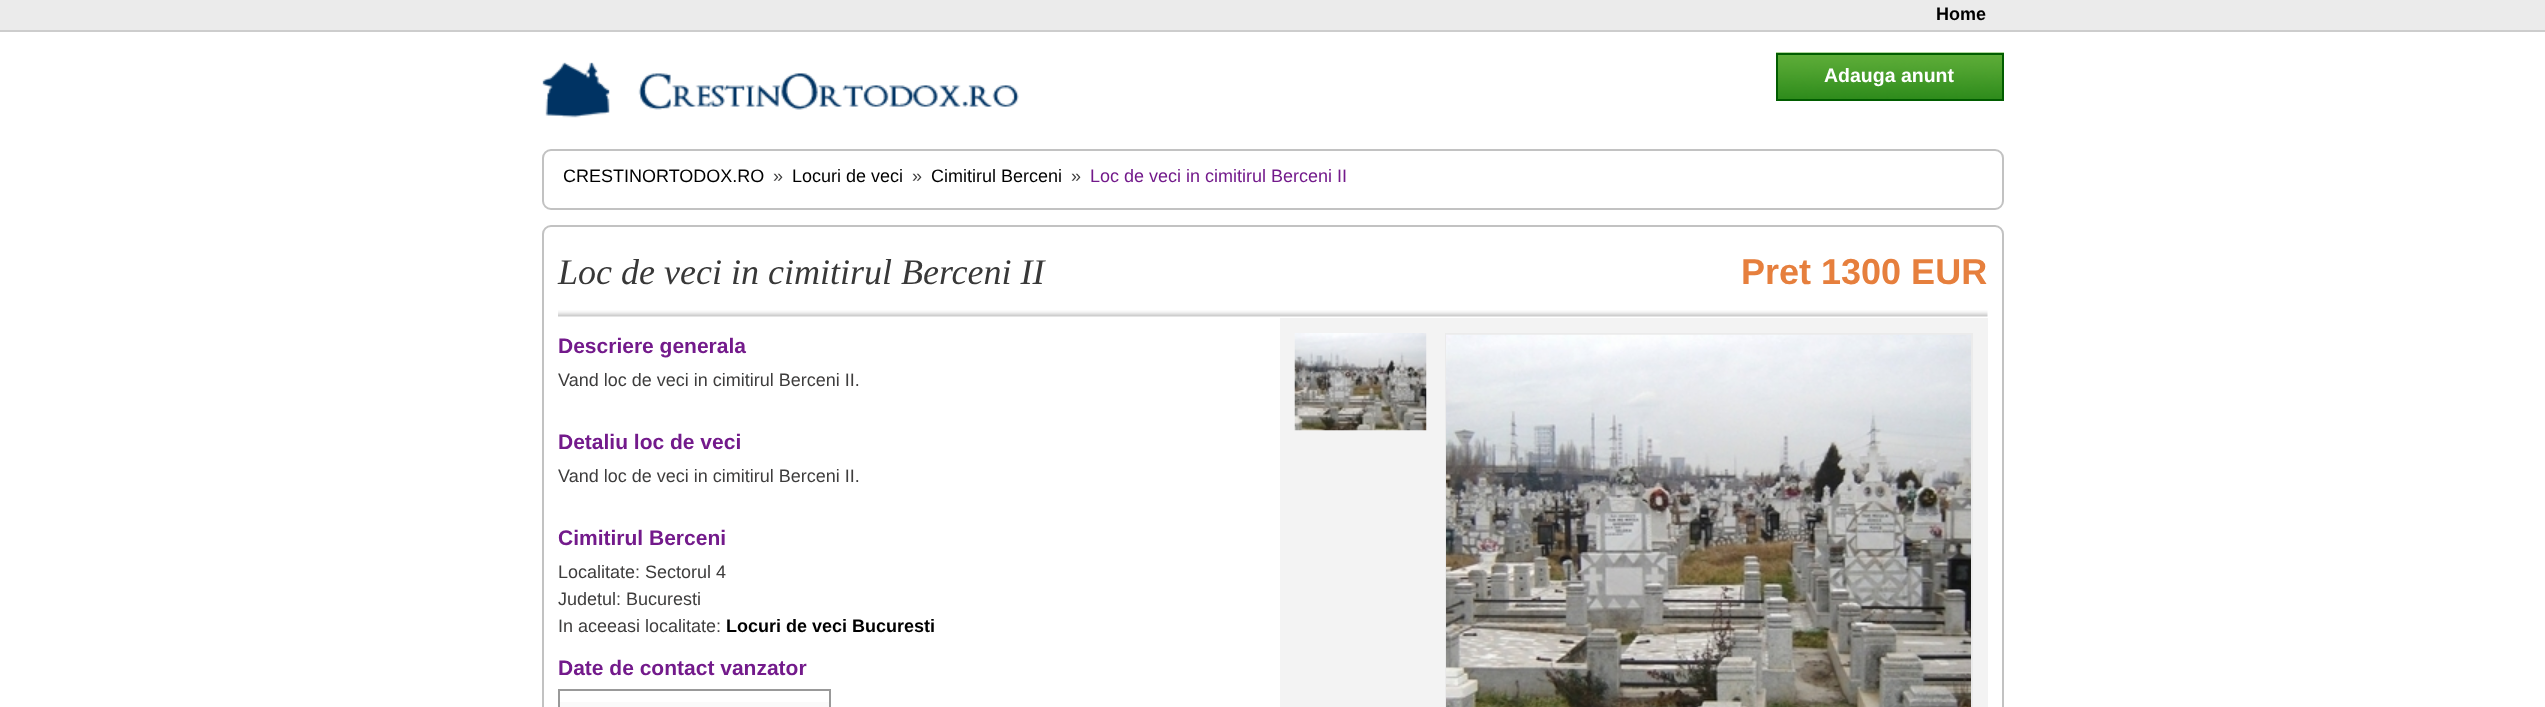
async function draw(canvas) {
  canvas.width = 2545
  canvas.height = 707
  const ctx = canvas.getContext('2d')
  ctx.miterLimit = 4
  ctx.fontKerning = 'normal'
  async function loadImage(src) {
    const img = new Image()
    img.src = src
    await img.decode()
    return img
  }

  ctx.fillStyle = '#fff'
  ctx.fillRect(0, 0, 2545, 707)
  ctx.fillStyle = '#ebebeb'
  ctx.fillRect(0, 0, 2545, 30)
  ctx.fillStyle = '#cdcdcd'
  ctx.fillRect(0, 30, 2545, 2)
  ctx.font = 'bold 18px Liberation Sans'
  ctx.fillStyle = '#000'
  ctx.fillText('Home', 1936, 20)
  ctx.drawImage(await loadImage('image0.png'), 542, 62, 477, 56)
  ctx.drawImage(await loadImage('image1.png'), 1776, 52, 228, 47)
  ctx.strokeStyle = '#015d00'
  ctx.lineWidth = 2
  ctx.strokeRect(1777, 54, 226, 46)
  ctx.font = 'bold 19.5px Liberation Sans'
  ctx.fillStyle = '#fff'
  ctx.fillText('Adauga anunt', 1824, 82)
  ctx.beginPath()
  ctx.roundRect(543, 150, 1460, 59, 8)
  ctx.strokeStyle = '#c2c2c2'
  ctx.stroke()
  ctx.font = '18px Liberation Sans'
  ctx.fillStyle = '#000'
  ctx.fillText('CRESTINORTODOX.RO', 563, 182)
  ctx.fillStyle = '#3e3d3d'
  ctx.fillText('»', 773, 182)
  ctx.fillStyle = '#000'
  ctx.fillText('Locuri de veci', 792, 182)
  ctx.fillStyle = '#3e3d3d'
  ctx.fillText('»', 912, 182)
  ctx.fillStyle = '#000'
  ctx.fillText('Cimitirul Berceni', 931, 182)
  ctx.fillStyle = '#3e3d3d'
  ctx.fillText('»', 1071, 182)
  ctx.fillStyle = '#731a8b'
  ctx.fillText('Loc de veci in cimitirul Berceni II', 1090, 182)
  ctx.beginPath()
  ctx.roundRect(543, 226, 1460, 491, 8)
  ctx.stroke()
  ctx.drawImage(await loadImage('image2.png'), 558, 310, 1430, 7)
  ctx.font = 'italic 36px Liberation Serif'
  ctx.fillStyle = '#383838'
  ctx.fillText('Loc de veci in cimitirul Berceni II', 558, 284)
  ctx.font = 'bold 36px Liberation Sans'
  ctx.fillStyle = '#e67f3d'
  ctx.fillText('Pret 1300 EUR', 1741, 284)
  ctx.font = 'bold 21px Liberation Sans'
  ctx.fillStyle = '#731a8b'
  ctx.fillText('Descriere generala', 558, 353)
  ctx.font = '18px Liberation Sans'
  ctx.fillStyle = '#3e3d3d'
  ctx.fillText('Vand loc de veci in cimitirul Berceni II.', 558, 386)
  ctx.font = 'bold 21px Liberation Sans'
  ctx.fillStyle = '#731a8b'
  ctx.fillText('Detaliu loc de veci', 558, 449)
  ctx.font = '18px Liberation Sans'
  ctx.fillStyle = '#3e3d3d'
  ctx.fillText('Vand loc de veci in cimitirul Berceni II.', 558, 482)
  ctx.font = 'bold 21px Liberation Sans'
  ctx.fillStyle = '#731a8b'
  ctx.fillText('Cimitirul Berceni', 558, 545)
  ctx.font = '18px Liberation Sans'
  ctx.fillStyle = '#3e3d3d'
  ctx.fillText('Localitate: Sectorul 4', 558, 578)
  ctx.fillText('Judetul: Bucuresti', 558, 605)
  ctx.fillText('In aceeasi localitate:', 558, 632)
  ctx.font = 'bold 18px Liberation Sans'
  ctx.fillStyle = '#000'
  ctx.fillText('Locuri de veci Bucuresti', 726, 632)
  ctx.font = 'bold 21px Liberation Sans'
  ctx.fillStyle = '#731a8b'
  ctx.fillText('Date de contact vanzator', 558, 675)
  ctx.fillStyle = '#fafafa'
  ctx.fillRect(558, 702, 273, 5)
  ctx.strokeStyle = '#999'
  ctx.strokeRect(559, 690, 271, 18)
  ctx.fillStyle = '#f3f3f3'
  ctx.fillRect(1280, 318, 708, 389)
  ctx.drawImage(await loadImage('image3.png'), 1294, 333, 133, 98)
  ctx.strokeStyle = '#ebebeb'
  ctx.strokeRect(1446, 334, 526, 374)
  ctx.drawImage(await loadImage('image4.png'), 1446, 334, 525, 373)
}

draw(document.querySelector('canvas'))
